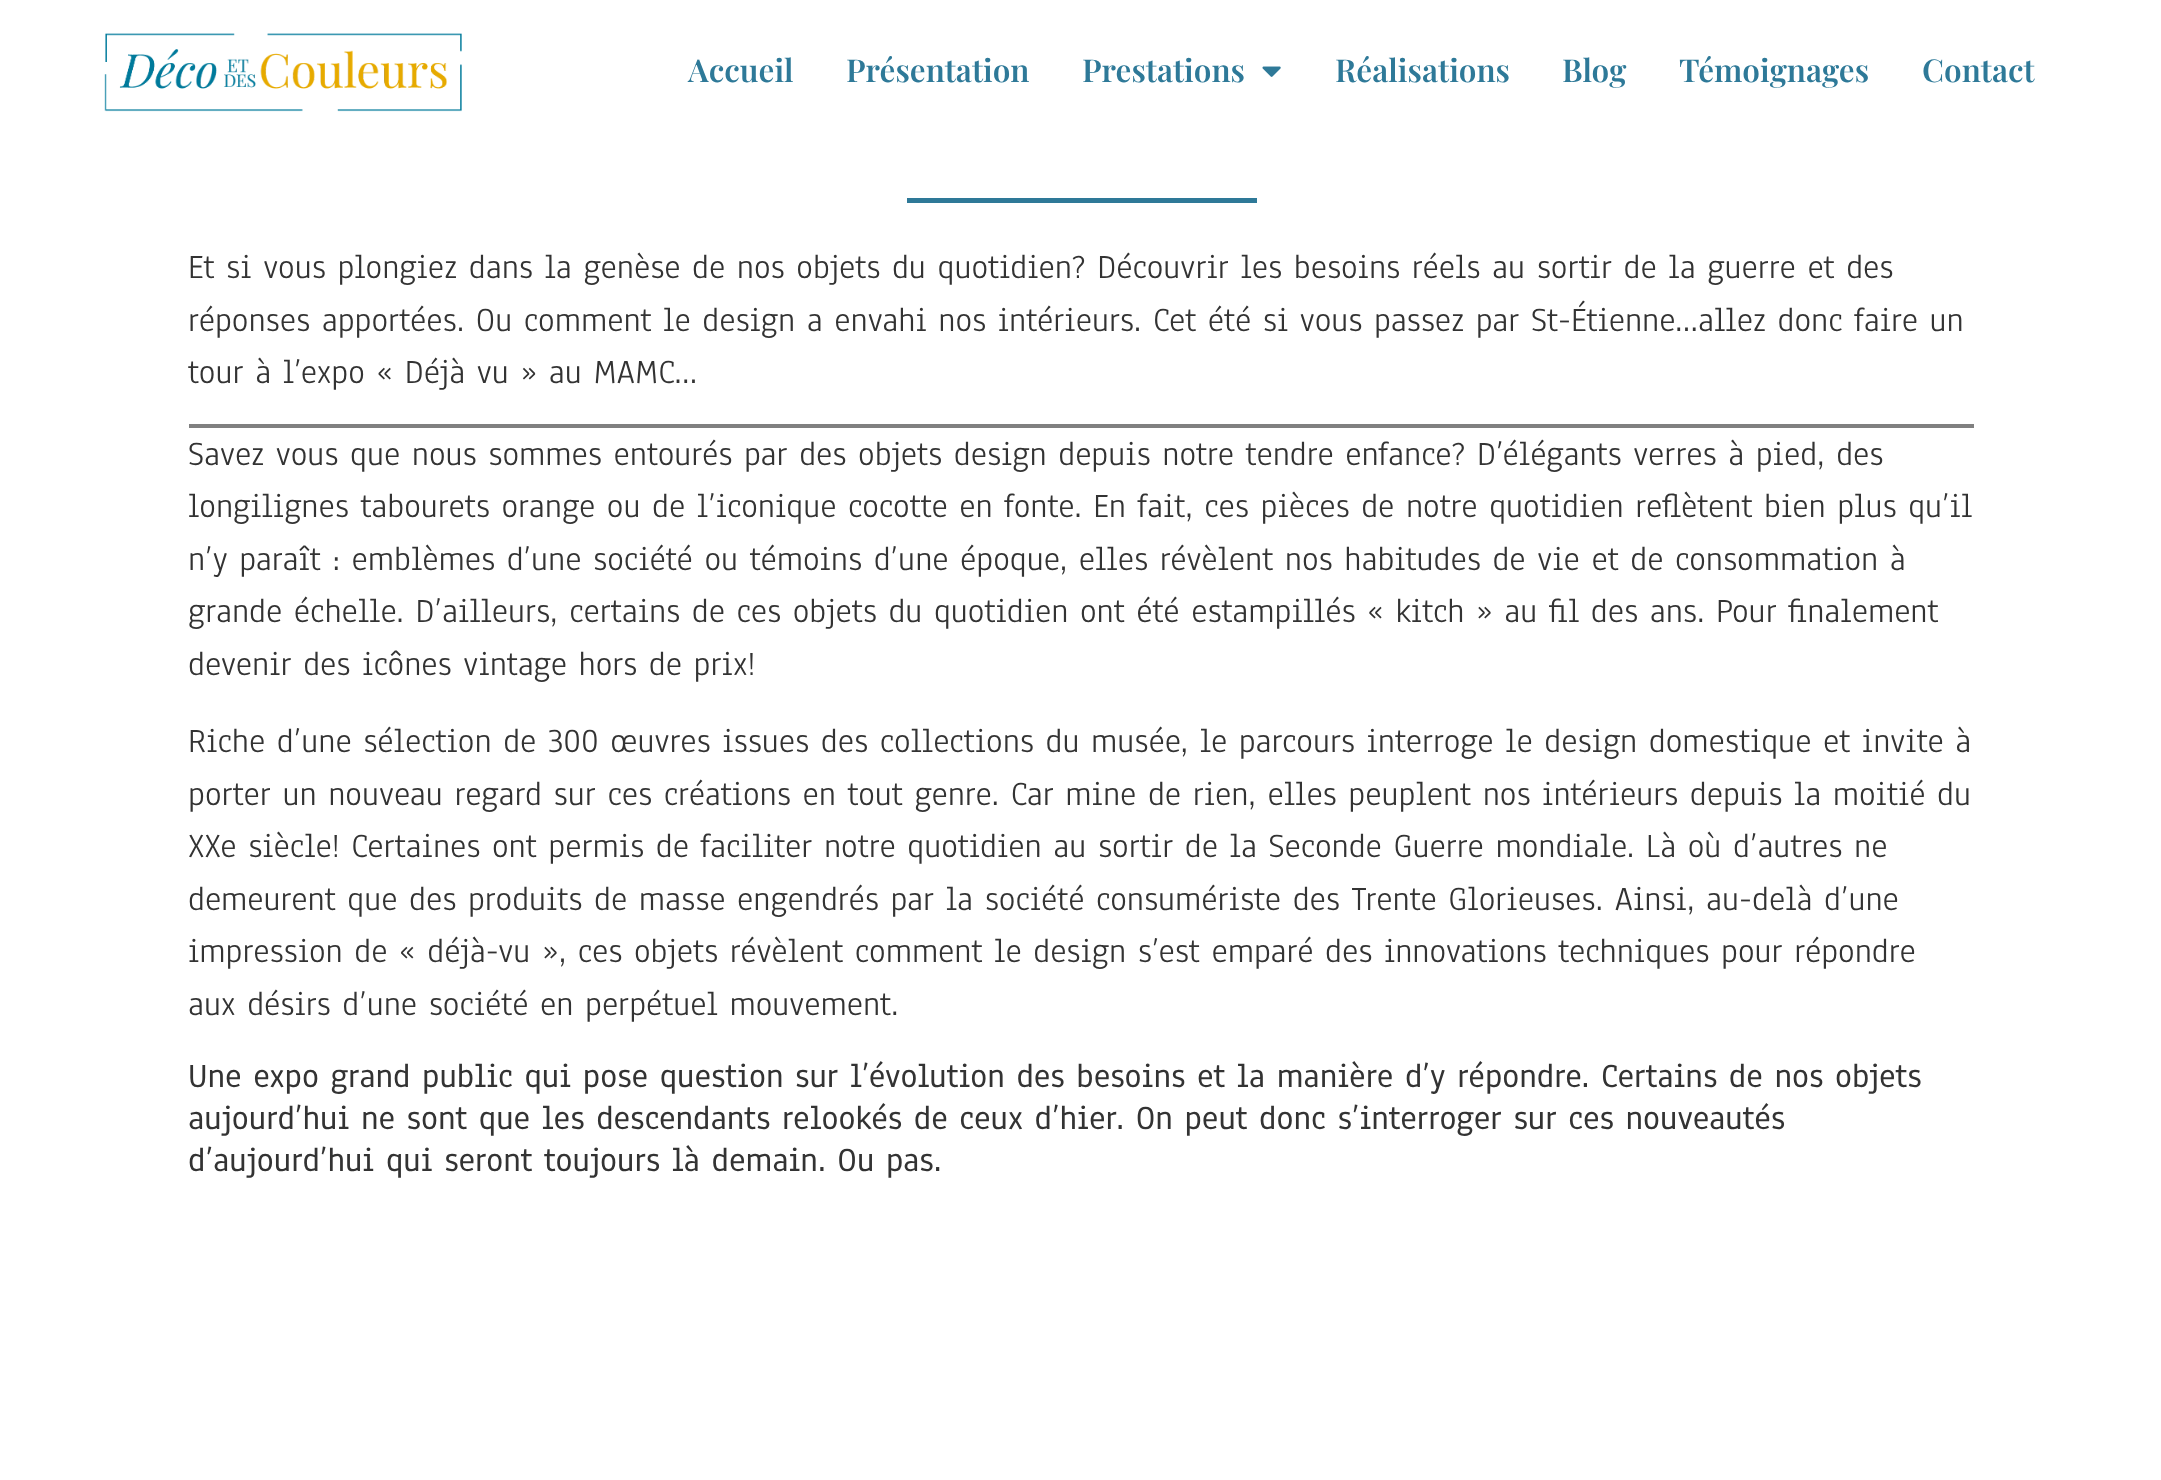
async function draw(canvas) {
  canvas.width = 2161
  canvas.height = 1480
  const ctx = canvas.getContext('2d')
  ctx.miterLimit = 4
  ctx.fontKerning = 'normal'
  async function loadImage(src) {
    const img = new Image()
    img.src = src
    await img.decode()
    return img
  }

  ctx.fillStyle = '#fff'
  ctx.fillRect(0, 0, 2161, 1480)
  ctx.drawImage(await loadImage('image0.png'), 104, 33, 358, 79)
  ctx.font = '600 31.5px Playfair Display'
  ctx.fillStyle = '#2e7998'
  ctx.fillText('Accueil', 688, 82)
  ctx.fillText('Présentation', 846, 82)
  ctx.fillText('Prestations', 1082, 82)
  ctx.drawImage(await loadImage('image1.png'), 1262, 66, 19, 11)
  ctx.fillText('Réalisations', 1335, 82)
  ctx.fillText('Blog', 1562, 82)
  ctx.fillText('Témoignages', 1679, 82)
  ctx.fillText('Contact', 1922, 82)
  ctx.fillRect(907, 198, 350, 5)
  ctx.font = '35px Anaheim'
  ctx.fillStyle = '#333'
  ctx.fillText('Et si vous plongiez dans la genèse de nos objets du quotidien? Découvrir les besoins réels au sortir de la guerre et des', 188, 278)
  ctx.fillText('réponses apportées. Ou comment le design a envahi nos intérieurs. Cet été si vous passez par St-Étienne…allez donc faire un', 188, 331)
  ctx.fillText('tour à l’expo « Déjà vu » au MAMC…', 188, 383)
  ctx.fillStyle = '#808080'
  ctx.fillRect(189, 424, 1785, 4)
  ctx.fillStyle = '#333'
  ctx.fillText('Savez vous que nous sommes entourés par des objets design depuis notre tendre enfance? D’élégants verres à pied, des', 188, 465)
  ctx.fillText('longilignes tabourets orange ou de l’iconique cocotte en fonte. En fait, ces pièces de notre quotidien reflètent bien plus qu’il', 188, 517)
  ctx.fillText('n’y paraît : emblèmes d’une société ou témoins d’une époque, elles révèlent nos habitudes de vie et de consommation à', 188, 570)
  ctx.fillText('grande échelle. D’ailleurs, certains de ces objets du quotidien ont été estampillés « kitch » au fil des ans. Pour finalement', 188, 622)
  ctx.fillText('devenir des icônes vintage hors de prix!', 188, 675)
  ctx.fillText('Riche d’une sélection de 300 œuvres issues des collections du musée, le parcours interroge le design domestique et invite à', 188, 752)
  ctx.fillText('porter un nouveau regard sur ces créations en tout genre. Car mine de rien, elles peuplent nos intérieurs depuis la moitié du', 188, 805)
  ctx.fillText('XXe siècle! Certaines ont permis de faciliter notre quotidien au sortir de la Seconde Guerre mondiale. Là où d’autres ne', 188, 857)
  ctx.fillText('demeurent que des produits de masse engendrés par la société consumériste des Trente Glorieuses. Ainsi, au-delà d’une', 188, 910)
  ctx.fillText('impression de « déjà-vu », ces objets révèlent comment le design s’est emparé des innovations techniques pour répondre', 188, 962)
  ctx.fillText('aux désirs d’une société en perpétuel mouvement.', 188, 1015)
  ctx.font = '500 35px Anaheim'
  ctx.fillText('Une expo grand public qui pose question sur l’évolution des besoins et la manière d’y répondre. Certains de nos objets', 188, 1087)
  ctx.fillText('aujourd’hui ne sont que les descendants relookés de ceux d’hier. On peut donc s’interroger sur ces nouveautés', 188, 1129)
  ctx.fillText('d’aujourd’hui qui seront toujours là demain. Ou pas.', 188, 1171)
}

draw(document.querySelector('canvas'))
